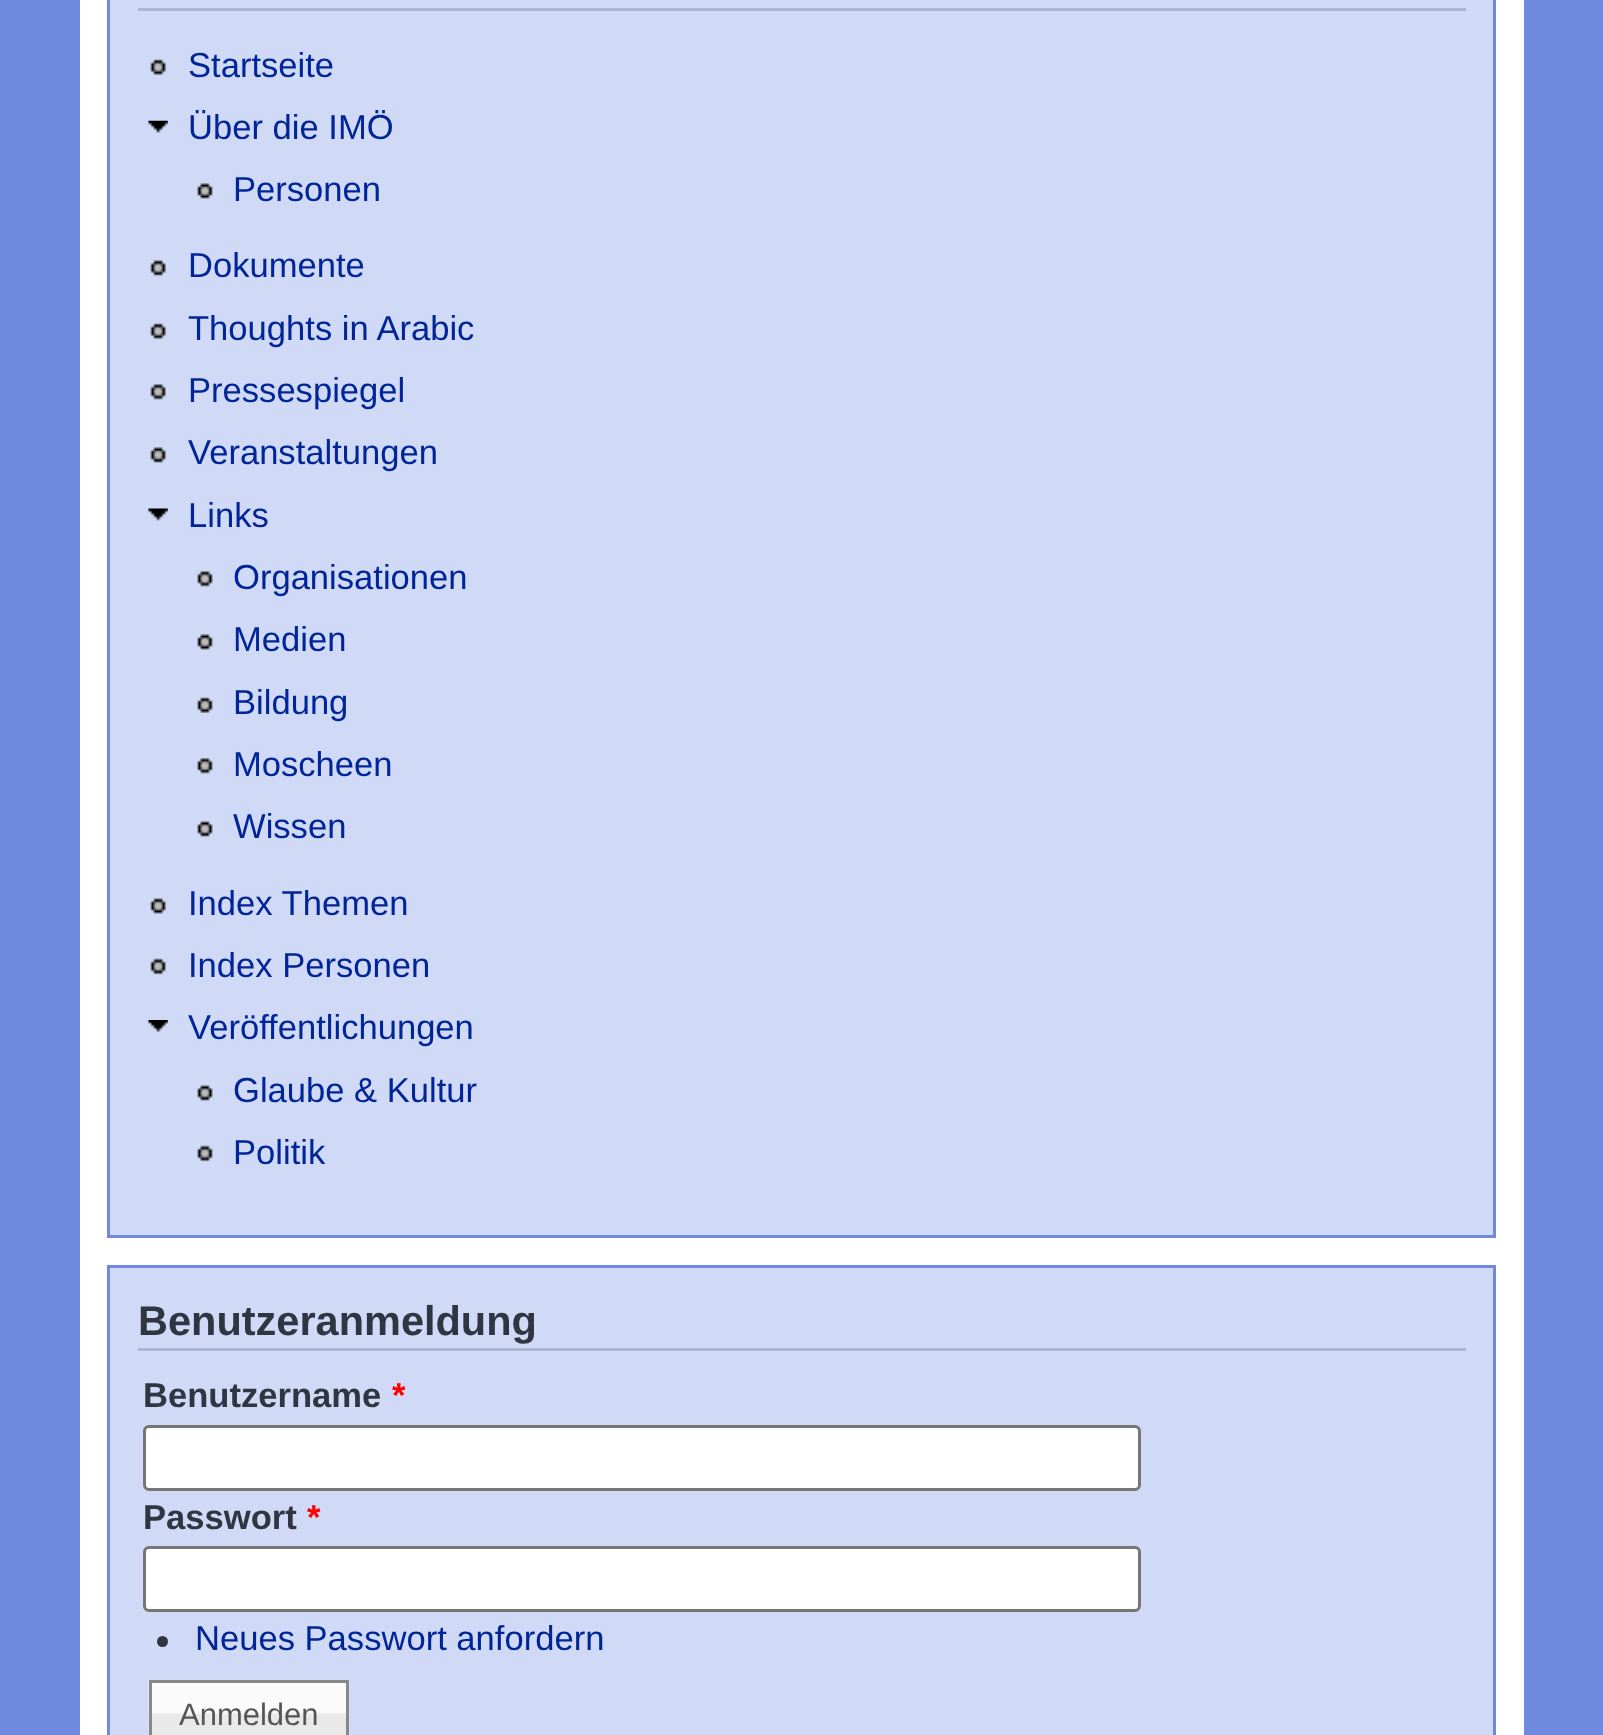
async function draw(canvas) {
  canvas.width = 1603
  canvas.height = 1735
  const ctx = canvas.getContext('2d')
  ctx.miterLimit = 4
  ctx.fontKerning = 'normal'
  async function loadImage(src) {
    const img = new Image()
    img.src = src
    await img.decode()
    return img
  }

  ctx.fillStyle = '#6e89dd'
  ctx.fillRect(0, 0, 1603, 1735)
  ctx.fillStyle = '#fff'
  ctx.fillRect(80, 0, 1444, 1735)
  ctx.fillStyle = '#d0d9f5'
  ctx.beginPath()
  ctx.rect(108.5, -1.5, 1386, 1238)
  ctx.fill()
  ctx.strokeStyle = '#6e89dd'
  ctx.lineWidth = 3
  ctx.stroke()
  ctx.fillStyle = '#acb6cd'
  ctx.fillRect(138, 8, 1328, 3)
  ctx.drawImage(await loadImage('image0.png'), 150, 59, 16, 16)
  ctx.font = '34.6px Liberation Sans'
  ctx.fillStyle = '#002598'
  ctx.fillText('Startseite', 188, 77)
  ctx.drawImage(await loadImage('image1.png'), 148, 120, 20, 13)
  ctx.fillText('Über die IMÖ', 188, 139)
  ctx.drawImage(await loadImage('image2.png'), 197, 183, 16, 16)
  ctx.fillText('Personen', 233, 201)
  ctx.drawImage(await loadImage('image3.png'), 150, 260, 16, 16)
  ctx.fillText('Dokumente', 188, 277)
  ctx.drawImage(await loadImage('image0.png'), 150, 323, 16, 16)
  ctx.fillText('Thoughts in Arabic', 188, 340)
  ctx.drawImage(await loadImage('image4.png'), 150, 384, 16, 16)
  ctx.fillText('Pressespiegel', 188, 402)
  ctx.drawImage(await loadImage('image3.png'), 150, 447, 16, 16)
  ctx.fillText('Veranstaltungen', 188, 464)
  ctx.drawImage(await loadImage('image5.png'), 148, 508, 20, 13)
  ctx.fillText('Links', 188, 527)
  ctx.drawImage(await loadImage('image6.png'), 197, 571, 16, 16)
  ctx.fillText('Organisationen', 233, 589)
  ctx.drawImage(await loadImage('image2.png'), 197, 634, 16, 16)
  ctx.fillText('Medien', 233, 651)
  ctx.drawImage(await loadImage('image7.png'), 197, 697, 16, 16)
  ctx.fillText('Bildung', 233, 714)
  ctx.drawImage(await loadImage('image6.png'), 197, 758, 16, 16)
  ctx.fillText('Moscheen', 233, 776)
  ctx.drawImage(await loadImage('image2.png'), 197, 821, 16, 16)
  ctx.fillText('Wissen', 233, 838)
  ctx.drawImage(await loadImage('image3.png'), 150, 898, 16, 16)
  ctx.fillText('Index Themen', 188, 915)
  ctx.drawImage(await loadImage('image8.png'), 150, 958, 16, 17)
  ctx.fillText('Index Personen', 188, 977)
  ctx.drawImage(await loadImage('image9.png'), 148, 1020, 20, 12)
  ctx.fillText('Veröffentlichungen', 188, 1039)
  ctx.drawImage(await loadImage('image2.png'), 197, 1085, 16, 16)
  ctx.fillText('Glaube & Kultur', 233, 1102)
  ctx.drawImage(await loadImage('image10.png'), 197, 1145, 16, 17)
  ctx.fillText('Politik', 233, 1164)
  ctx.fillStyle = '#d0d9f5'
  ctx.beginPath()
  ctx.rect(108.5, 1266.5, 1386, 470)
  ctx.fill()
  ctx.stroke()
  ctx.fillStyle = '#acb6cd'
  ctx.fillRect(138, 1348, 1328, 3)
  ctx.font = 'bold 41.5px Liberation Sans'
  ctx.fillStyle = '#303641'
  ctx.fillText('Benutzeranmeldung', 138, 1335)
  ctx.font = 'bold 34.6px Liberation Sans'
  ctx.fillText('Benutzername', 143, 1407)
  ctx.fillStyle = '#f00'
  ctx.fillText('*', 392, 1407)
  ctx.fillStyle = '#fff'
  ctx.beginPath()
  ctx.roundRect(144.5, 1426.5, 995, 63, 4.5)
  ctx.fill()
  ctx.strokeStyle = '#767676'
  ctx.stroke()
  ctx.fillStyle = '#303641'
  ctx.fillText('Passwort', 143, 1529)
  ctx.fillStyle = '#f00'
  ctx.fillText('*', 307, 1529)
  ctx.fillStyle = '#fff'
  ctx.beginPath()
  ctx.roundRect(144.5, 1547.5, 995, 63, 4.5)
  ctx.fill()
  ctx.stroke()
  ctx.fillStyle = '#303641'
  ctx.beginPath()
  ctx.arc(162.5, 1641.5, 5.5, 0, 2 * Math.PI)
  ctx.fill()
  ctx.font = '34.6px Liberation Sans'
  ctx.fillStyle = '#002598'
  ctx.fillText('Neues Passwort anfordern', 195, 1650)
  ctx.drawImage(await loadImage('image11.png'), 148, 1680, 202, 55)
  ctx.strokeStyle = '#888'
  ctx.strokeRect(150.5, 1681.5, 197, 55)
  ctx.font = '31px Liberation Sans'
  ctx.fillStyle = '#555'
  ctx.fillText('Anmelden', 179, 1725)
}

draw(document.querySelector('canvas'))
